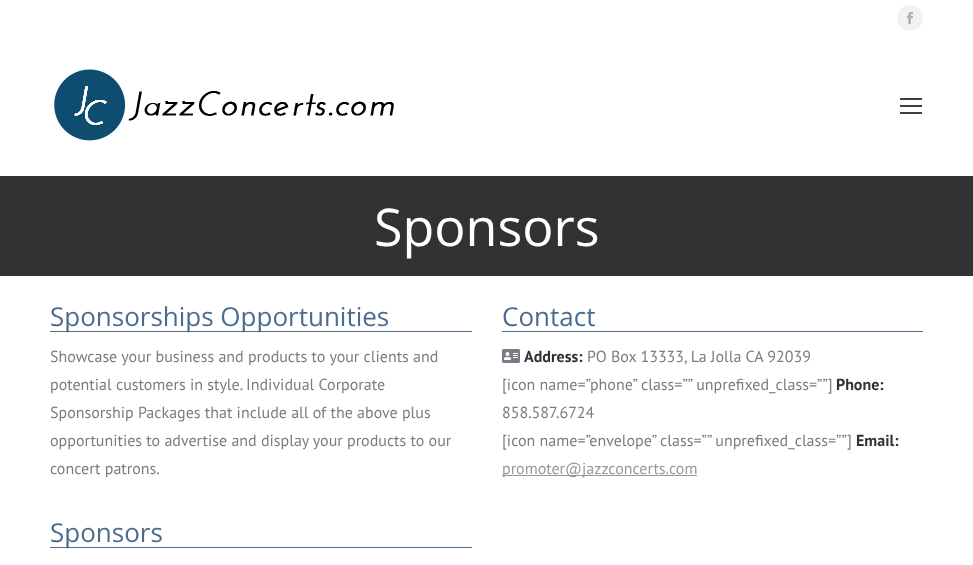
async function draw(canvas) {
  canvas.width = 973
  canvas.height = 565
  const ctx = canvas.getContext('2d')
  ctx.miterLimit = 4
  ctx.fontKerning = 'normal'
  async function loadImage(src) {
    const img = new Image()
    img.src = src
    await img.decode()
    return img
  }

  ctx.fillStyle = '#fff'
  ctx.fillRect(0, 0, 973, 565)
  ctx.fillStyle = '#f1f2f3'
  ctx.beginPath()
  ctx.arc(910, 18, 13, 0, 2 * Math.PI)
  ctx.fill()
  ctx.drawImage(await loadImage('image0.png'), 907, 12, 6, 12)
  ctx.drawImage(await loadImage('image1.png'), 54, 69, 340, 72)
  ctx.fillStyle = '#3b3f4a'
  ctx.fillRect(900, 105, 22, 2)
  ctx.fillRect(900, 98, 22, 2)
  ctx.fillRect(900, 112, 22, 2)
  ctx.fillStyle = '#323232'
  ctx.fillRect(0, 176, 973, 100)
  ctx.font = '52px Open Sans'
  ctx.fillStyle = '#fff'
  ctx.fillText('Sponsors', 374, 246)
  ctx.fillStyle = '#4c6c8d'
  ctx.fillRect(50, 331, 422, 1)
  ctx.font = '26px Open Sans'
  ctx.fillText('Sponsorships Opportunities', 50, 326)
  ctx.font = '16px PT Sans'
  ctx.fillStyle = '#787d85'
  ctx.fillText('Showcase your business and products to your clients and', 50, 362)
  ctx.fillText('potential customers in style. Individual Corporate', 50, 390)
  ctx.fillText('Sponsorship Packages that include all of the above plus', 50, 418)
  ctx.fillText('opportunities to advertise and display your products to our', 50, 446)
  ctx.fillText('concert patrons.', 50, 474)
  ctx.fillStyle = '#4c6c8d'
  ctx.fillRect(50, 547, 422, 1)
  ctx.font = '26px Open Sans'
  ctx.fillText('Sponsors', 50, 542)
  ctx.fillRect(502, 331, 421, 1)
  ctx.fillText('Contact', 502, 326)
  ctx.drawImage(await loadImage('image2.png'), 502, 349, 18, 14)
  ctx.font = 'bold 16px PT Sans'
  ctx.fillStyle = '#323232'
  ctx.fillText('Address:', 524, 362)
  ctx.font = '16px PT Sans'
  ctx.fillStyle = '#787d85'
  ctx.fillText('PO Box 13333, La Jolla CA 92039', 587, 362)
  ctx.fillText('[icon name=”phone” class=”” unprefixed_class=””]', 502, 390)
  ctx.font = 'bold 16px PT Sans'
  ctx.fillStyle = '#323232'
  ctx.fillText('Phone:', 836, 390)
  ctx.font = '16px PT Sans'
  ctx.fillStyle = '#787d85'
  ctx.fillText('858.587.6724', 502, 418)
  ctx.fillText('[icon name=”envelope” class=”” unprefixed_class=””]', 502, 446)
  ctx.font = 'bold 16px PT Sans'
  ctx.fillStyle = '#323232'
  ctx.fillText('Email:', 856, 446)
  ctx.fillStyle = '#999'
  ctx.fillRect(502, 475, 195, 1)
  ctx.font = '16px PT Sans'
  ctx.fillText('promoter@jazzconcerts.com', 502, 474)
}

draw(document.querySelector('canvas'))
